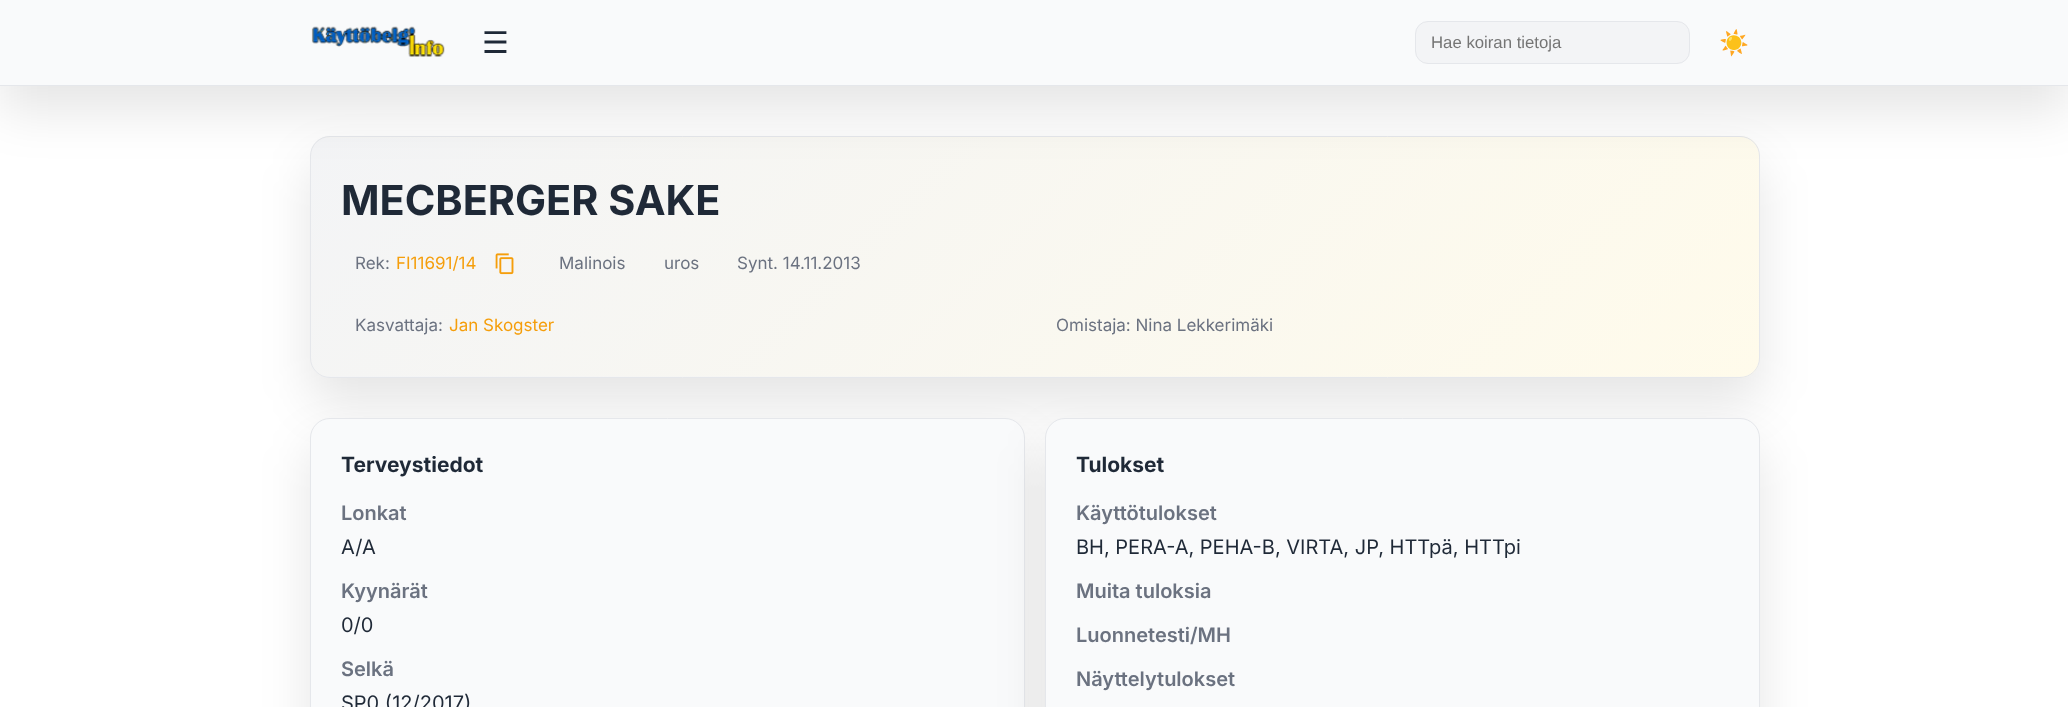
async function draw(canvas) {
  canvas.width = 2068
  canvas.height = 707
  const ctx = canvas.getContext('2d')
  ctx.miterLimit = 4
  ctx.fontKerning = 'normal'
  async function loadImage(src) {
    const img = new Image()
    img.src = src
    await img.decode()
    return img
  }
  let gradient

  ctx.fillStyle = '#fff'
  ctx.fillRect(0, 0, 2068, 707)
  ctx.fillStyle = '#0000001a'
  ctx.filter = 'blur(25px)'
  ctx.beginPath()
  ctx.roundRect(310, 161, 1450, 242, 20)
  ctx.fill()
  ctx.filter = 'none'
  ctx.save()
  ctx.beginPath()
  ctx.roundRect(310, 136, 1450, 242, 20)
  ctx.clip()
  gradient = ctx.createLinearGradient(613, -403, 1457, 440)
  gradient.addColorStop(0, '#f3f4f6')
  gradient.addColorStop(1, '#fffbeb')
  ctx.fillStyle = gradient
  ctx.fillRect(321, 136, 1428, 2)
  gradient = ctx.createLinearGradient(613, -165, 1457, 678)
  gradient.addColorStop(0, '#f3f4f6')
  gradient.addColorStop(1, '#fffbeb')
  ctx.fillStyle = gradient
  ctx.fillRect(311, 138, 1448, 238)
  gradient = ctx.createLinearGradient(613, 74, 1457, 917)
  gradient.addColorStop(0, '#f3f4f6')
  gradient.addColorStop(1, '#fffbeb')
  ctx.fillStyle = gradient
  ctx.fillRect(321, 376, 1428, 2)
  ctx.restore()
  ctx.beginPath()
  ctx.roundRect(310.5, 136.5, 1449, 241, 19.5)
  ctx.strokeStyle = '#e5e7eb'
  ctx.stroke()
  ctx.filter = 'blur(25px)'
  ctx.beginPath()
  ctx.rect(0, 25, 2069, 86)
  ctx.fill()
  ctx.filter = 'none'
  ctx.fillStyle = '#f9fafb'
  ctx.fillRect(0, 0, 2068, 85)
  ctx.fillStyle = '#e5e7eb'
  ctx.fillRect(0, 85, 2068, 1)
  ctx.drawImage(await loadImage('image0.png'), 311, 26, 134, 31)
  ctx.font = '30px DejaVu Sans'
  ctx.fillStyle = '#1f2937'
  ctx.fillText('☰', 482, 53)
  ctx.fillStyle = '#f3f4f6'
  ctx.beginPath()
  ctx.roundRect(1415.5, 21.5, 274, 42, 12.5)
  ctx.fill()
  ctx.stroke()
  ctx.font = '16.75px Liberation Sans'
  ctx.fillStyle = '#757575'
  ctx.fillText('Hae koiran tietoja', 1431, 48)
  ctx.font = '24px Noto Color Emoji'
  ctx.fillStyle = '#1f2937'
  ctx.fillText('☀️', 1719, 51)
  ctx.font = 'bold 41.4px Inter'
  ctx.fillText('MECBERGER SAKE', 341, 215)
  ctx.font = '17px Inter'
  ctx.fillStyle = '#6b7280'
  ctx.fillText('Rek:', 355, 269)
  ctx.fillStyle = '#f59e0b'
  ctx.fillText('FI11691/14', 396, 269)
  ctx.drawImage(await loadImage('image1.png'), 495, 253, 19, 22)
  ctx.fillStyle = '#6b7280'
  ctx.fillText('Malinois', 559, 269)
  ctx.fillText('uros', 664, 269)
  ctx.fillText('Synt. 14.11.2013', 737, 269)
  ctx.fillText('Kasvattaja:', 355, 331)
  ctx.fillStyle = '#f59e0b'
  ctx.fillText('Jan Skogster', 449, 331)
  ctx.fillStyle = '#6b7280'
  ctx.fillText('Omistaja: Nina Lekkerimäki', 1056, 331)
  ctx.fillStyle = '#0000001a'
  ctx.filter = 'blur(25px)'
  ctx.beginPath()
  ctx.roundRect(310, 443, 715, 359, 20)
  ctx.fill()
  ctx.filter = 'none'
  ctx.fillStyle = '#f9fafb'
  ctx.beginPath()
  ctx.roundRect(310.5, 418.5, 714, 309, 19.5)
  ctx.fill()
  ctx.stroke()
  ctx.font = 'bold 21px Inter'
  ctx.fillStyle = '#1f2937'
  ctx.fillText('Terveystiedot', 341, 472)
  ctx.font = '600 20px Inter'
  ctx.fillStyle = '#6b7280'
  ctx.fillText('Lonkat', 341, 520)
  ctx.font = '20px Inter'
  ctx.fillStyle = '#1f2937'
  ctx.fillText('A/A', 341, 554)
  ctx.font = '600 20px Inter'
  ctx.fillStyle = '#6b7280'
  ctx.fillText('Kyynärät', 341, 598)
  ctx.font = '20px Inter'
  ctx.fillStyle = '#1f2937'
  ctx.fillText('0/0', 341, 632)
  ctx.font = '600 20px Inter'
  ctx.fillStyle = '#6b7280'
  ctx.fillText('Selkä', 341, 676)
  ctx.font = '20px Inter'
  ctx.fillStyle = '#1f2937'
  ctx.fillText('SP0 (12/2017)', 341, 710)
  ctx.fillStyle = '#0000001a'
  ctx.filter = 'blur(25px)'
  ctx.beginPath()
  ctx.roundRect(1045, 443, 715, 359, 20)
  ctx.fill()
  ctx.filter = 'none'
  ctx.fillStyle = '#f9fafb'
  ctx.beginPath()
  ctx.roundRect(1045.5, 418.5, 714, 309, 19.5)
  ctx.fill()
  ctx.stroke()
  ctx.font = 'bold 21px Inter'
  ctx.fillStyle = '#1f2937'
  ctx.fillText('Tulokset', 1076, 472)
  ctx.font = '600 20px Inter'
  ctx.fillStyle = '#6b7280'
  ctx.fillText('Käyttötulokset', 1076, 520)
  ctx.font = '20px Inter'
  ctx.fillStyle = '#1f2937'
  ctx.fillText('BH, PERA-A, PEHA-B, VIRTA, JP, HTTpä, HTTpi', 1076, 554)
  ctx.font = '600 20px Inter'
  ctx.fillStyle = '#6b7280'
  ctx.fillText('Muita tuloksia', 1076, 598)
  ctx.fillText('Luonnetesti/MH', 1076, 642)
  ctx.fillText('Näyttelytulokset', 1076, 686)
}

draw(document.querySelector('canvas'))
